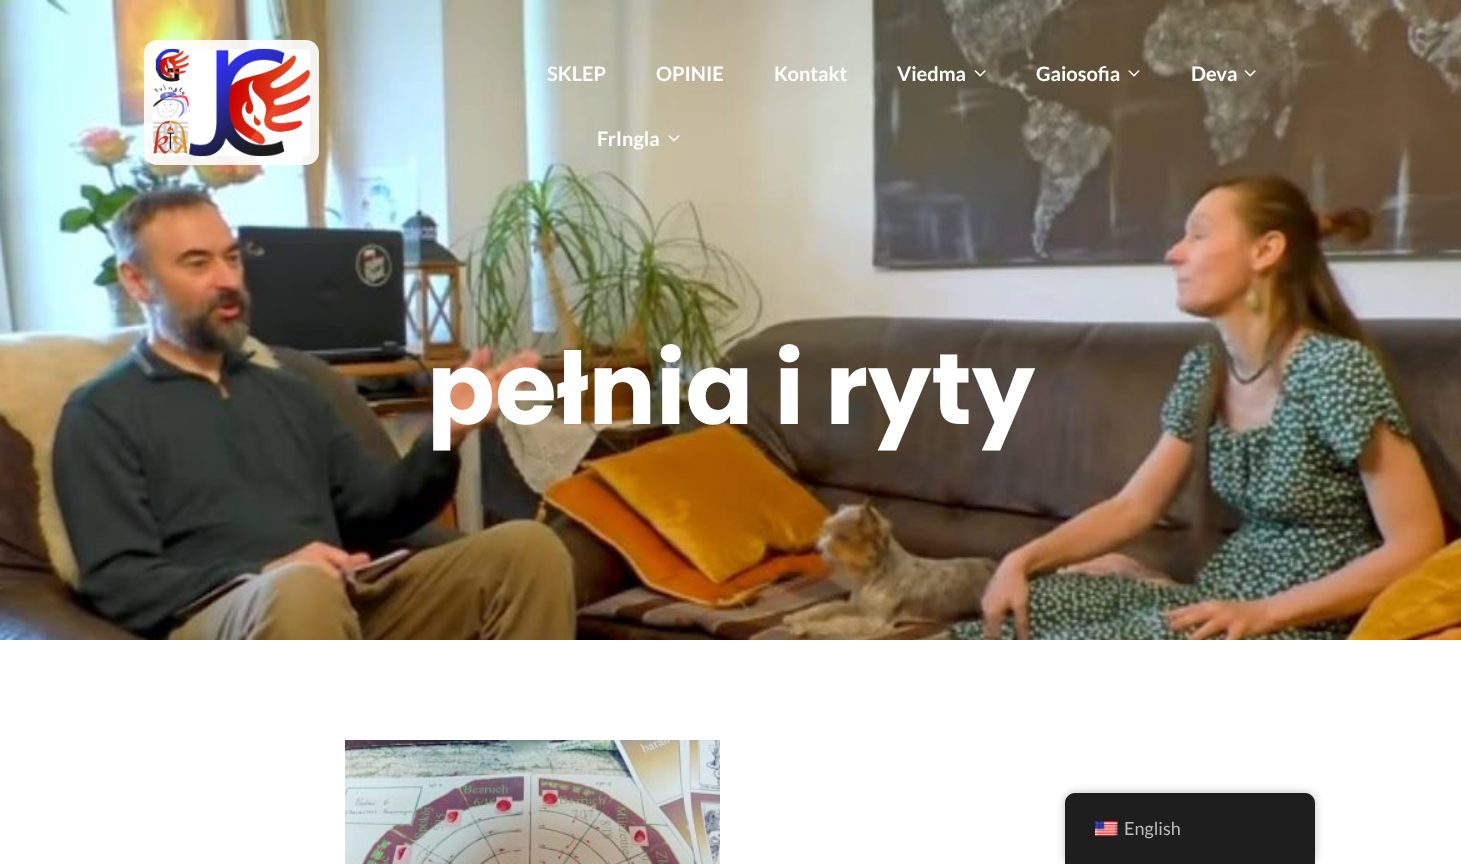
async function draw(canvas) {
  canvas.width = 1461
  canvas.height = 864
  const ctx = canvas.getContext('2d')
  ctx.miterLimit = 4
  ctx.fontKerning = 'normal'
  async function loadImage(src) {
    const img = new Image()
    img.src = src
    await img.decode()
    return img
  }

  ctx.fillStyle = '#fff'
  ctx.fillRect(0, 0, 1461, 864)
  ctx.drawImage(await loadImage('image0.png'), 0, 0, 1461, 640)
  ctx.fillStyle = '#ffffffe6'
  ctx.beginPath()
  ctx.roundRect(144, 40, 175, 125, 13)
  ctx.fill()
  ctx.drawImage(await loadImage('image1.png'), 152, 48, 158, 109)
  ctx.font = 'bold 20px Lato'
  ctx.fillStyle = '#fff'
  ctx.fillText('SKLEP', 547, 81)
  ctx.fillText('OPINIE', 656, 81)
  ctx.fillText('Kontakt', 774, 81)
  ctx.fillText('Viedma', 897, 81)
  ctx.drawImage(await loadImage('image2.png'), 974, 70, 12, 7)
  ctx.fillText('Gaiosofia', 1036, 81)
  ctx.drawImage(await loadImage('image3.png'), 1128, 70, 12, 7)
  ctx.fillText('Deva', 1191, 81)
  ctx.drawImage(await loadImage('image4.png'), 1244, 70, 12, 7)
  ctx.fillText('FrIngla', 597, 146)
  ctx.drawImage(await loadImage('image5.png'), 668, 135, 12, 7)
  ctx.font = 'bold 100px Poppins'
  ctx.fillText('pełnia i ryty', 427, 424)
  ctx.drawImage(await loadImage('image6.png'), 345, 740, 375, 124)
  ctx.fillStyle = '#00000040'
  ctx.filter = 'blur(5px)'
  ctx.beginPath()
  ctx.roundRect(1065, 793, 250, 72, 10)
  ctx.fill()
  ctx.filter = 'none'
  ctx.fillStyle = '#1e1e1e'
  ctx.beginPath()
  ctx.moveTo(1075, 793)
  ctx.lineTo(1305, 793)
  ctx.bezierCurveTo(1310.5, 793, 1315, 797.5, 1315, 803)
  ctx.lineTo(1315, 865)
  ctx.lineTo(1065, 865)
  ctx.lineTo(1065, 803)
  ctx.bezierCurveTo(1065, 797.5, 1069.5, 793, 1075, 793)
  ctx.closePath()
  ctx.fill()
  ctx.drawImage(await loadImage('image7.png'), 1095, 821, 23, 16)
  ctx.font = '18px Lato'
  ctx.fillStyle = '#bdbdbd'
  ctx.fillText('English', 1124, 835)
}

draw(document.querySelector('canvas'))
